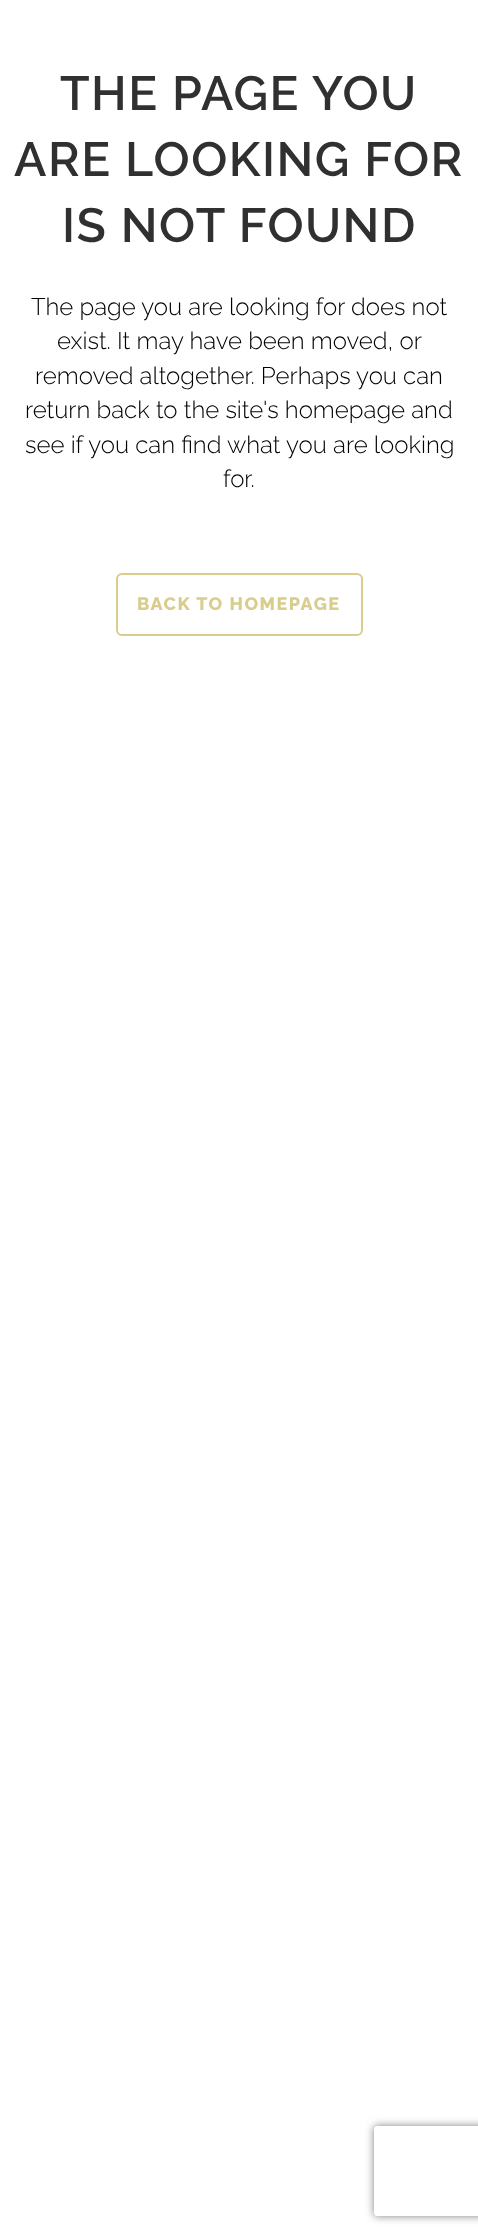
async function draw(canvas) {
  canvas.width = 478
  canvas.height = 2236
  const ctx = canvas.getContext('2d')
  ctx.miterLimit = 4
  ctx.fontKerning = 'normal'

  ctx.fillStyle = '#fff'
  ctx.fillRect(0, 0, 478, 2236)
  ctx.letterSpacing = '1.5px'
  ctx.font = '600 48px Raleway'
  ctx.fillStyle = '#303030'
  ctx.fillText('THE PAGE YOU', 60, 110)
  ctx.fillText('ARE LOOKING FOR', 14, 176)
  ctx.fillText('IS NOT FOUND', 62, 242)
  ctx.letterSpacing = '0px'
  ctx.font = '300 24px Raleway'
  ctx.fillStyle = '#000'
  ctx.fillText('The page you are looking for does not', 31, 315)
  ctx.fillText('exist. It may have been moved, or', 57, 349)
  ctx.fillText('removed altogether. Perhaps you can', 35, 384)
  ctx.fillText('return back to the site\'s homepage and', 25, 418)
  ctx.fillText('see if you can find what you are looking', 25, 453)
  ctx.fillText('for.', 223, 487)
  ctx.beginPath()
  ctx.roundRect(117, 574, 245, 61, 5)
  ctx.strokeStyle = '#d9cd8e'
  ctx.lineWidth = 2
  ctx.stroke()
  ctx.letterSpacing = '1.5px'
  ctx.font = '800 18px Raleway'
  ctx.fillStyle = '#d9cd8e'
  ctx.fillText('BACK TO HOMEPAGE', 137, 610)
  ctx.save()
  ctx.beginPath()
  ctx.moveTo(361, 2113)
  ctx.lineTo(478, 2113)
  ctx.lineTo(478, 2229)
  ctx.lineTo(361, 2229)
  ctx.closePath()
  ctx.moveTo(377, 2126)
  ctx.lineTo(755, 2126)
  ctx.bezierCurveTo(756.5, 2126, 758, 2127.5, 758, 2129)
  ctx.lineTo(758, 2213)
  ctx.bezierCurveTo(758, 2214.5, 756.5, 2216, 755, 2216)
  ctx.lineTo(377, 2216)
  ctx.bezierCurveTo(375.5, 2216, 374, 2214.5, 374, 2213)
  ctx.lineTo(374, 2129)
  ctx.bezierCurveTo(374, 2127.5, 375.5, 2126, 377, 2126)
  ctx.closePath()
  ctx.clip('evenodd')
  ctx.fillStyle = '#808080'
  ctx.filter = 'blur(4px)'
  ctx.beginPath()
  ctx.roundRect(374, 2126, 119, 90, 3)
  ctx.fill()
  ctx.filter = 'none'
  ctx.restore()
}

draw(document.querySelector('canvas'))
